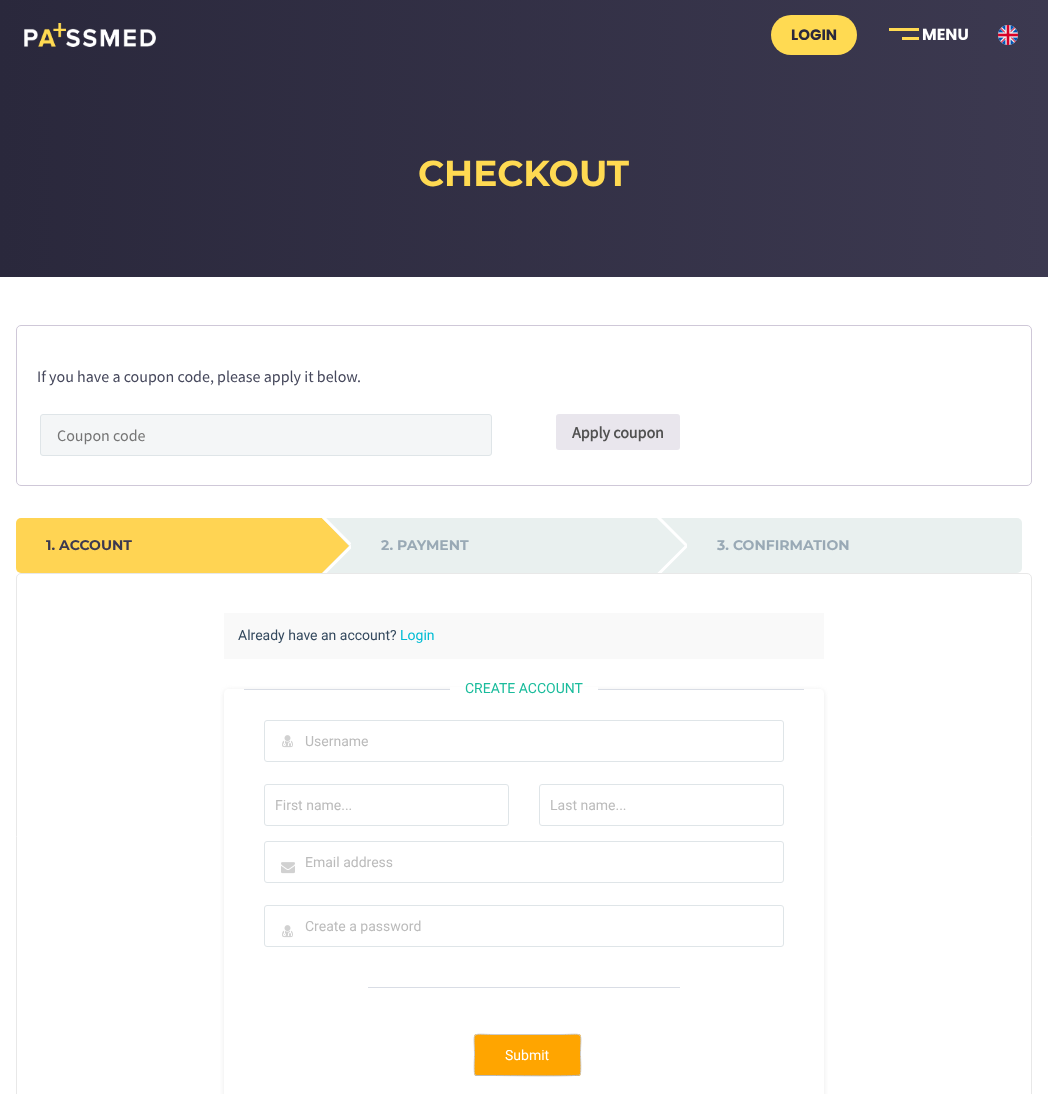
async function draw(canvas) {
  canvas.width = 1048
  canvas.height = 1094
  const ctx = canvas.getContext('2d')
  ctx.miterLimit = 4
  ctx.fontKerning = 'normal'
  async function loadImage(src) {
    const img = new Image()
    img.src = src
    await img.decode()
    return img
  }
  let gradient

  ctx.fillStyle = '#fff'
  ctx.fillRect(0, 0, 1048, 1094)
  gradient = ctx.createLinearGradient(0, 35, 1048, 35)
  gradient.addColorStop(0, '#2a283c')
  gradient.addColorStop(1, '#3c3950')
  ctx.fillStyle = gradient
  ctx.fillRect(0, 0, 1048, 70)
  ctx.drawImage(await loadImage('image0.png'), 24, 23, 132, 24)
  ctx.fillStyle = '#ffda52'
  ctx.beginPath()
  ctx.roundRect(771, 15, 86, 40, 20)
  ctx.fill()
  ctx.font = 'bold 15px Poppins'
  ctx.fillStyle = '#2a283c'
  ctx.fillText('LOGIN', 791, 40)
  ctx.fillStyle = '#ffda52'
  ctx.fillRect(889, 28, 30, 3)
  ctx.font = 'bold 16px Poppins'
  ctx.fillStyle = '#fff'
  ctx.fillText('MENU', 922, 40)
  ctx.fillStyle = '#ffda52'
  ctx.fillRect(902, 37, 17, 3)
  ctx.drawImage(await loadImage('image1.png'), 998, 25, 20, 20)
  gradient = ctx.createLinearGradient(0, 174, 1048, 173)
  gradient.addColorStop(0, '#2a283c')
  gradient.addColorStop(1, '#3c3950')
  ctx.fillStyle = gradient
  ctx.fillRect(0, 70, 1048, 207)
  ctx.font = 'bold 36px Montserrat'
  ctx.fillStyle = '#ffda52'
  ctx.fillText('CHECKOUT', 418, 186)
  ctx.beginPath()
  ctx.roundRect(16.5, 325.5, 1015, 160, 4.5)
  ctx.strokeStyle = '#cfc8d8'
  ctx.stroke()
  ctx.font = '16px Source Sans Pro'
  ctx.fillStyle = '#46485c'
  ctx.fillText('If you have a coupon code, please apply it below.', 37, 382)
  ctx.fillStyle = '#f4f6f7'
  ctx.beginPath()
  ctx.roundRect(40.5, 414.5, 451, 41, 2.5)
  ctx.fill()
  ctx.strokeStyle = '#dfe5e8'
  ctx.stroke()
  ctx.fillStyle = '#757575'
  ctx.fillText('Coupon code', 57, 441)
  ctx.fillStyle = '#e9e6ed'
  ctx.beginPath()
  ctx.roundRect(556, 414, 124, 36, 3)
  ctx.fill()
  ctx.font = 'bold 16px Source Sans Pro'
  ctx.fillStyle = '#515151'
  ctx.fillText('Apply coupon', 572, 438)
  ctx.fillStyle = '#ffd453'
  ctx.beginPath()
  ctx.roundRect(16, 518, 335, 55, [5, 0, 0, 5])
  ctx.fill()
  ctx.font = 'bold 14px Montserrat'
  ctx.fillStyle = '#3c3950'
  ctx.fillText('1. ACCOUNT', 46, 550)
  ctx.fillStyle = '#e9f0ef'
  ctx.beginPath()
  ctx.moveTo(351, 548)
  ctx.lineTo(322, 518)
  ctx.lineTo(351, 518)
  ctx.closePath()
  ctx.fill()
  ctx.save()
  ctx.beginPath()
  ctx.roundRect(16, 518, 335, 55, [5, 0, 0, 5])
  ctx.clip()
  ctx.beginPath()
  ctx.moveTo(354.5, 487.5)
  ctx.lineTo(384.5, 518)
  ctx.lineTo(354.5, 548.5)
  ctx.lineTo(324, 518)
  ctx.closePath()
  ctx.strokeStyle = '#fff'
  ctx.lineWidth = 3
  ctx.stroke()
  ctx.restore()
  ctx.beginPath()
  ctx.moveTo(351, 544)
  ctx.lineTo(351, 573)
  ctx.lineTo(322, 573)
  ctx.closePath()
  ctx.fill()
  ctx.save()
  ctx.beginPath()
  ctx.roundRect(16, 518, 335, 55, [5, 0, 0, 5])
  ctx.clip()
  ctx.beginPath()
  ctx.moveTo(354.5, 543)
  ctx.lineTo(384.5, 573.5)
  ctx.lineTo(354.5, 604)
  ctx.lineTo(324, 573.5)
  ctx.closePath()
  ctx.strokeStyle = '#fff'
  ctx.lineWidth = 3
  ctx.stroke()
  ctx.restore()
  ctx.fillRect(351, 518, 336, 55)
  ctx.fillStyle = '#99a9b5'
  ctx.fillText('2. PAYMENT', 381, 550)
  ctx.save()
  ctx.beginPath()
  ctx.rect(351, 518, 336, 55)
  ctx.clip()
  ctx.beginPath()
  ctx.moveTo(689.5, 487.5)
  ctx.lineTo(720, 518)
  ctx.lineTo(689.5, 548.5)
  ctx.lineTo(659, 518)
  ctx.closePath()
  ctx.strokeStyle = '#fff'
  ctx.lineWidth = 3
  ctx.stroke()
  ctx.fillStyle = '#e9f0ef'
  ctx.beginPath()
  ctx.moveTo(690, 541)
  ctx.lineTo(722, 573)
  ctx.lineTo(690, 606)
  ctx.lineTo(657, 573)
  ctx.closePath()
  ctx.fill()
  ctx.beginPath()
  ctx.moveTo(689.5, 543)
  ctx.lineTo(720, 573.5)
  ctx.lineTo(689.5, 604)
  ctx.lineTo(659, 573.5)
  ctx.closePath()
  ctx.stroke()
  ctx.restore()
  ctx.fillStyle = '#e9f0ef'
  ctx.beginPath()
  ctx.roundRect(687, 518, 335, 55, [0, 5, 5, 0])
  ctx.fill()
  ctx.fillStyle = '#99a9b5'
  ctx.fillText('3. CONFIRMATION', 717, 550)
  ctx.beginPath()
  ctx.roundRect(16.5, 573.5, 1015, 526, 4.5)
  ctx.strokeStyle = '#e8e8e8'
  ctx.stroke()
  ctx.fillStyle = '#f9f9f9'
  ctx.fillRect(224, 613, 600, 46)
  ctx.font = '14px Roboto'
  ctx.fillStyle = '#34495e'
  ctx.fillText('Already have an account?', 238, 640)
  ctx.fillStyle = '#00bcd4'
  ctx.fillText('Login', 400, 640)
  ctx.fillStyle = '#dcdcdca6'
  ctx.filter = 'blur(2.5px)'
  ctx.beginPath()
  ctx.roundRect(224, 690, 600, 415, 5)
  ctx.fill()
  ctx.filter = 'none'
  ctx.fillStyle = '#fff'
  ctx.beginPath()
  ctx.moveTo(229, 689)
  ctx.lineTo(819, 689)
  ctx.bezierCurveTo(822, 689, 824, 691, 824, 694)
  ctx.lineTo(824, 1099)
  ctx.lineTo(224, 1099)
  ctx.lineTo(224, 694)
  ctx.bezierCurveTo(224, 691, 226, 689, 229, 689)
  ctx.closePath()
  ctx.fill()
  ctx.fillStyle = '#d9dde5'
  ctx.fillRect(244, 689, 560, 1)
  ctx.fillStyle = '#fff'
  ctx.fillRect(450, 687, 148, 3)
  ctx.fillStyle = '#1abc9c'
  ctx.fillText('CREATE ACCOUNT', 465, 693)
  ctx.beginPath()
  ctx.roundRect(264.5, 720.5, 519, 41, 2.5)
  ctx.strokeStyle = '#dfe5e8'
  ctx.stroke()
  ctx.drawImage(await loadImage('image2.png'), 282, 735, 11, 13)
  ctx.fillStyle = '#bbb'
  ctx.fillText('Username', 305, 746)
  ctx.beginPath()
  ctx.roundRect(264.5, 784.5, 244, 41, 2.5)
  ctx.stroke()
  ctx.fillText('First name...', 275, 810)
  ctx.beginPath()
  ctx.roundRect(539.5, 784.5, 244, 41, 2.5)
  ctx.stroke()
  ctx.fillText('Last name...', 550, 810)
  ctx.beginPath()
  ctx.roundRect(264.5, 841.5, 519, 41, 2.5)
  ctx.stroke()
  ctx.drawImage(await loadImage('image3.png'), 281, 862, 14, 12)
  ctx.fillText('Email address', 305, 867)
  ctx.beginPath()
  ctx.roundRect(264.5, 905.5, 519, 41, 2.5)
  ctx.stroke()
  ctx.drawImage(await loadImage('image2.png'), 282, 925, 11, 13)
  ctx.fillText('Create a password', 305, 931)
  ctx.fillStyle = '#d9dde5'
  ctx.fillRect(368, 987, 312, 1)
  ctx.fillStyle = '#ffa500'
  ctx.beginPath()
  ctx.roundRect(474, 1034, 107, 42, 3)
  ctx.fill()
  ctx.beginPath()
  ctx.moveTo(580, 1075)
  ctx.lineTo(579.5, 1075)
  ctx.bezierCurveTo(577.5, 1076.5, 502.5, 1075.5, 494, 1075.5)
  ctx.lineTo(477, 1075.5)
  ctx.lineTo(475, 1075)
  ctx.strokeStyle = '#bbb'
  ctx.stroke()
  ctx.beginPath()
  ctx.moveTo(475, 1075)
  ctx.bezierCurveTo(473.5, 1073, 474.5, 1058, 474.5, 1055)
  ctx.bezierCurveTo(474.5, 1030, 469.5, 1034.5, 494, 1034.5)
  ctx.lineTo(561, 1034.5)
  ctx.bezierCurveTo(585.5, 1034.5, 580.5, 1030, 580.5, 1055)
  ctx.bezierCurveTo(580.5, 1058, 581.5, 1073, 580, 1075)
  ctx.strokeStyle = '#ccc'
  ctx.stroke()
  ctx.fillStyle = '#fff'
  ctx.fillText('Submit', 505, 1060)
}

draw(document.querySelector('canvas'))
